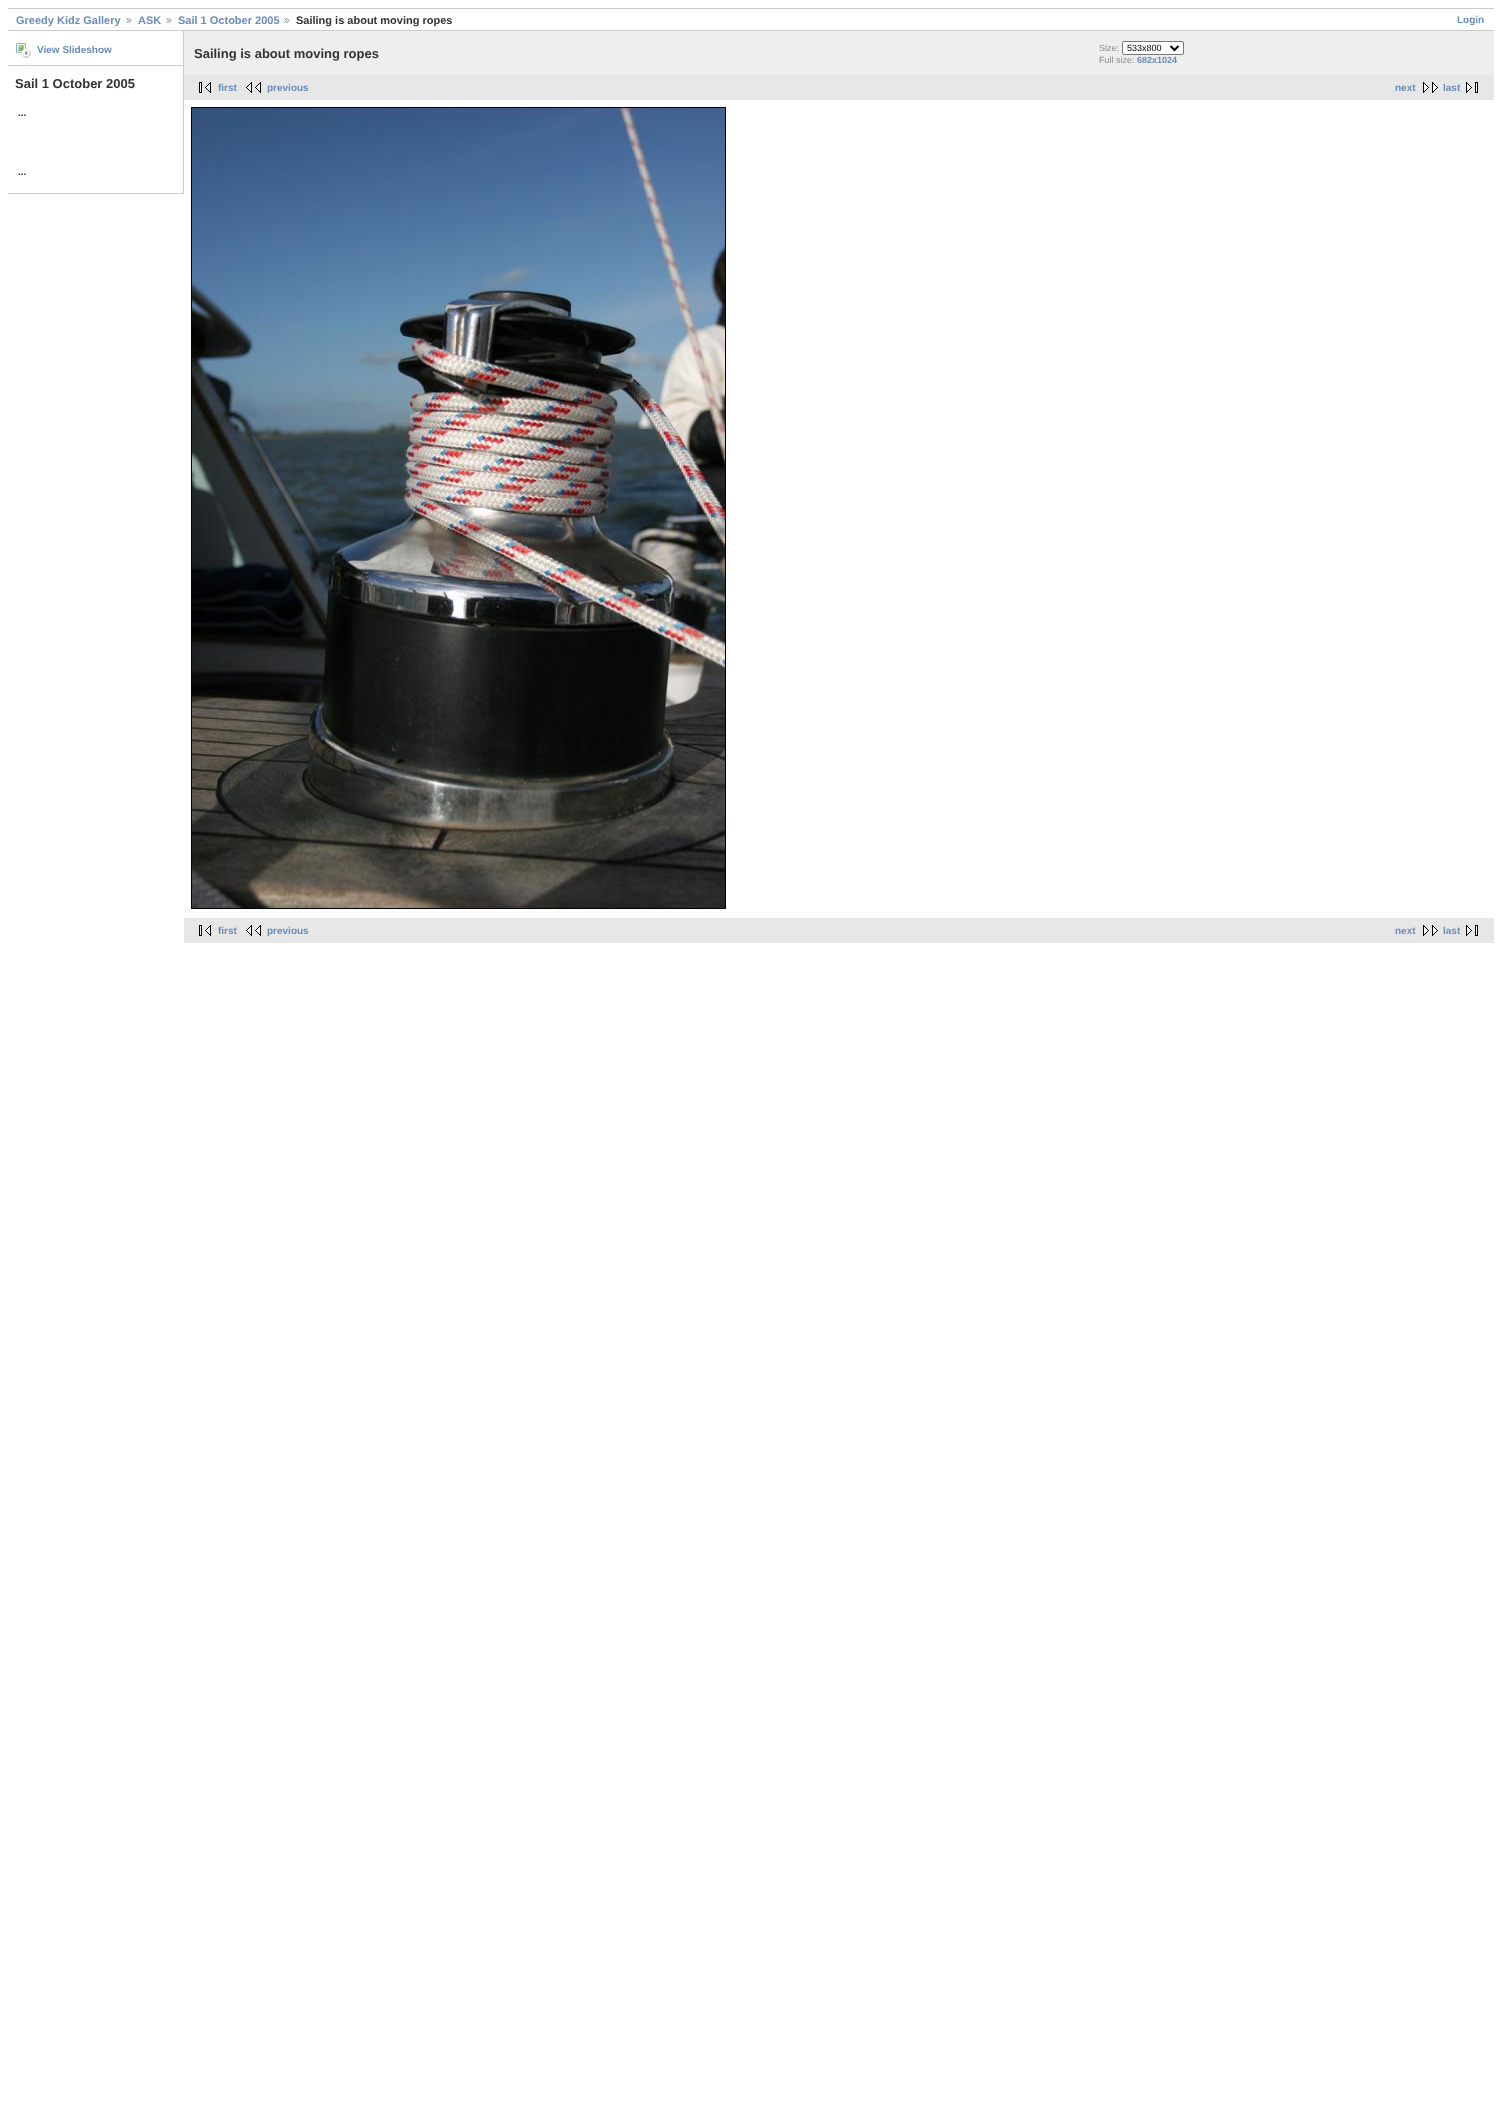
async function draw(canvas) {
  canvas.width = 1502
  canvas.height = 2107
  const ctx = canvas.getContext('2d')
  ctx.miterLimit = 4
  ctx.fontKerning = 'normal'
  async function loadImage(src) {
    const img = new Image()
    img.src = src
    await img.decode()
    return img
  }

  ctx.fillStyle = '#fff'
  ctx.fillRect(0, 0, 1502, 2107)
  ctx.fillStyle = '#ccc'
  ctx.fillRect(8, 8, 1486, 1)
  ctx.fillRect(8, 30, 1486, 1)
  ctx.font = 'bold 11px Liberation Sans'
  ctx.fillStyle = '#6b8cb7'
  ctx.fillText('Greedy Kidz Gallery', 16, 24)
  ctx.drawImage(await loadImage('image0.png'), 126, 18, 6, 5)
  ctx.fillText('ASK', 138, 24)
  ctx.drawImage(await loadImage('image0.png'), 166, 18, 6, 5)
  ctx.fillText('Sail 1 October 2005', 178, 24)
  ctx.drawImage(await loadImage('image0.png'), 284, 18, 6, 5)
  ctx.fillStyle = '#333'
  ctx.fillText('Sailing is about moving ropes', 296, 24)
  ctx.font = 'bold 10px Liberation Sans'
  ctx.fillStyle = '#6b8cb7'
  ctx.fillText('Login', 1457, 23)
  ctx.fillStyle = '#ccc'
  ctx.fillRect(183, 31, 1, 163)
  ctx.fillRect(8, 65, 175, 1)
  ctx.drawImage(await loadImage('image1.png'), 16, 43, 15, 15)
  ctx.fillStyle = '#6b8cb7'
  ctx.fillText('View Slideshow', 37, 53)
  ctx.fillStyle = '#ccc'
  ctx.fillRect(8, 193, 175, 1)
  ctx.font = 'bold 13px Liberation Sans'
  ctx.fillStyle = '#333'
  ctx.fillText('Sail 1 October 2005', 15, 88)
  ctx.font = 'bold 10px Liberation Sans'
  ctx.fillText('...', 18, 116)
  ctx.fillText('...', 18, 175)
  ctx.fillStyle = '#eee'
  ctx.fillRect(184, 31, 1310, 44)
  ctx.font = 'bold 13px Liberation Sans'
  ctx.fillStyle = '#333'
  ctx.fillText('Sailing is about moving ropes', 194, 58)
  ctx.font = '9px Liberation Sans'
  ctx.fillStyle = '#888'
  ctx.fillText('Size:', 1099, 51)
  ctx.fillStyle = '#fff'
  ctx.beginPath()
  ctx.roundRect(1122.5, 41.5, 61, 13, 1.5)
  ctx.fill()
  ctx.strokeStyle = '#767676'
  ctx.stroke()
  ctx.beginPath()
  ctx.moveTo(1170.5, 46)
  ctx.lineTo(1174.5, 50)
  ctx.lineTo(1178.5, 46)
  ctx.strokeStyle = '#000'
  ctx.lineWidth = 2
  ctx.stroke()
  ctx.fillStyle = '#000'
  ctx.fillText('533x800', 1127, 51)
  ctx.fillStyle = '#888'
  ctx.fillText('Full size:', 1099, 63)
  ctx.font = 'bold 9px Liberation Sans'
  ctx.fillStyle = '#6b8cb7'
  ctx.fillText('682x1024', 1137, 63)
  ctx.fillStyle = '#e7e7e7'
  ctx.fillRect(184, 75, 1310, 25)
  ctx.drawImage(await loadImage('image2.png'), 199, 82, 12, 11)
  ctx.font = 'bold 10px Liberation Sans'
  ctx.fillStyle = '#6b8cb7'
  ctx.fillText('first', 218, 91)
  ctx.drawImage(await loadImage('image3.png'), 246, 82, 15, 11)
  ctx.fillText('previous', 267, 91)
  ctx.fillText('next', 1395, 91)
  ctx.drawImage(await loadImage('image4.png'), 1423, 82, 15, 11)
  ctx.fillText('last', 1443, 91)
  ctx.drawImage(await loadImage('image5.png'), 1466, 82, 12, 11)
  ctx.lineWidth = 1
  ctx.strokeRect(191.5, 107.5, 534, 801)
  ctx.drawImage(await loadImage('image6.png'), 192, 108, 533, 800)
  ctx.fillStyle = '#e7e7e7'
  ctx.fillRect(184, 918, 1310, 25)
  ctx.drawImage(await loadImage('image2.png'), 199, 925, 12, 11)
  ctx.fillStyle = '#6b8cb7'
  ctx.fillText('first', 218, 934)
  ctx.drawImage(await loadImage('image3.png'), 246, 925, 15, 11)
  ctx.fillText('previous', 267, 934)
  ctx.fillText('next', 1395, 934)
  ctx.drawImage(await loadImage('image4.png'), 1423, 925, 15, 11)
  ctx.fillText('last', 1443, 934)
  ctx.drawImage(await loadImage('image5.png'), 1466, 925, 12, 11)
}

draw(document.querySelector('canvas'))
